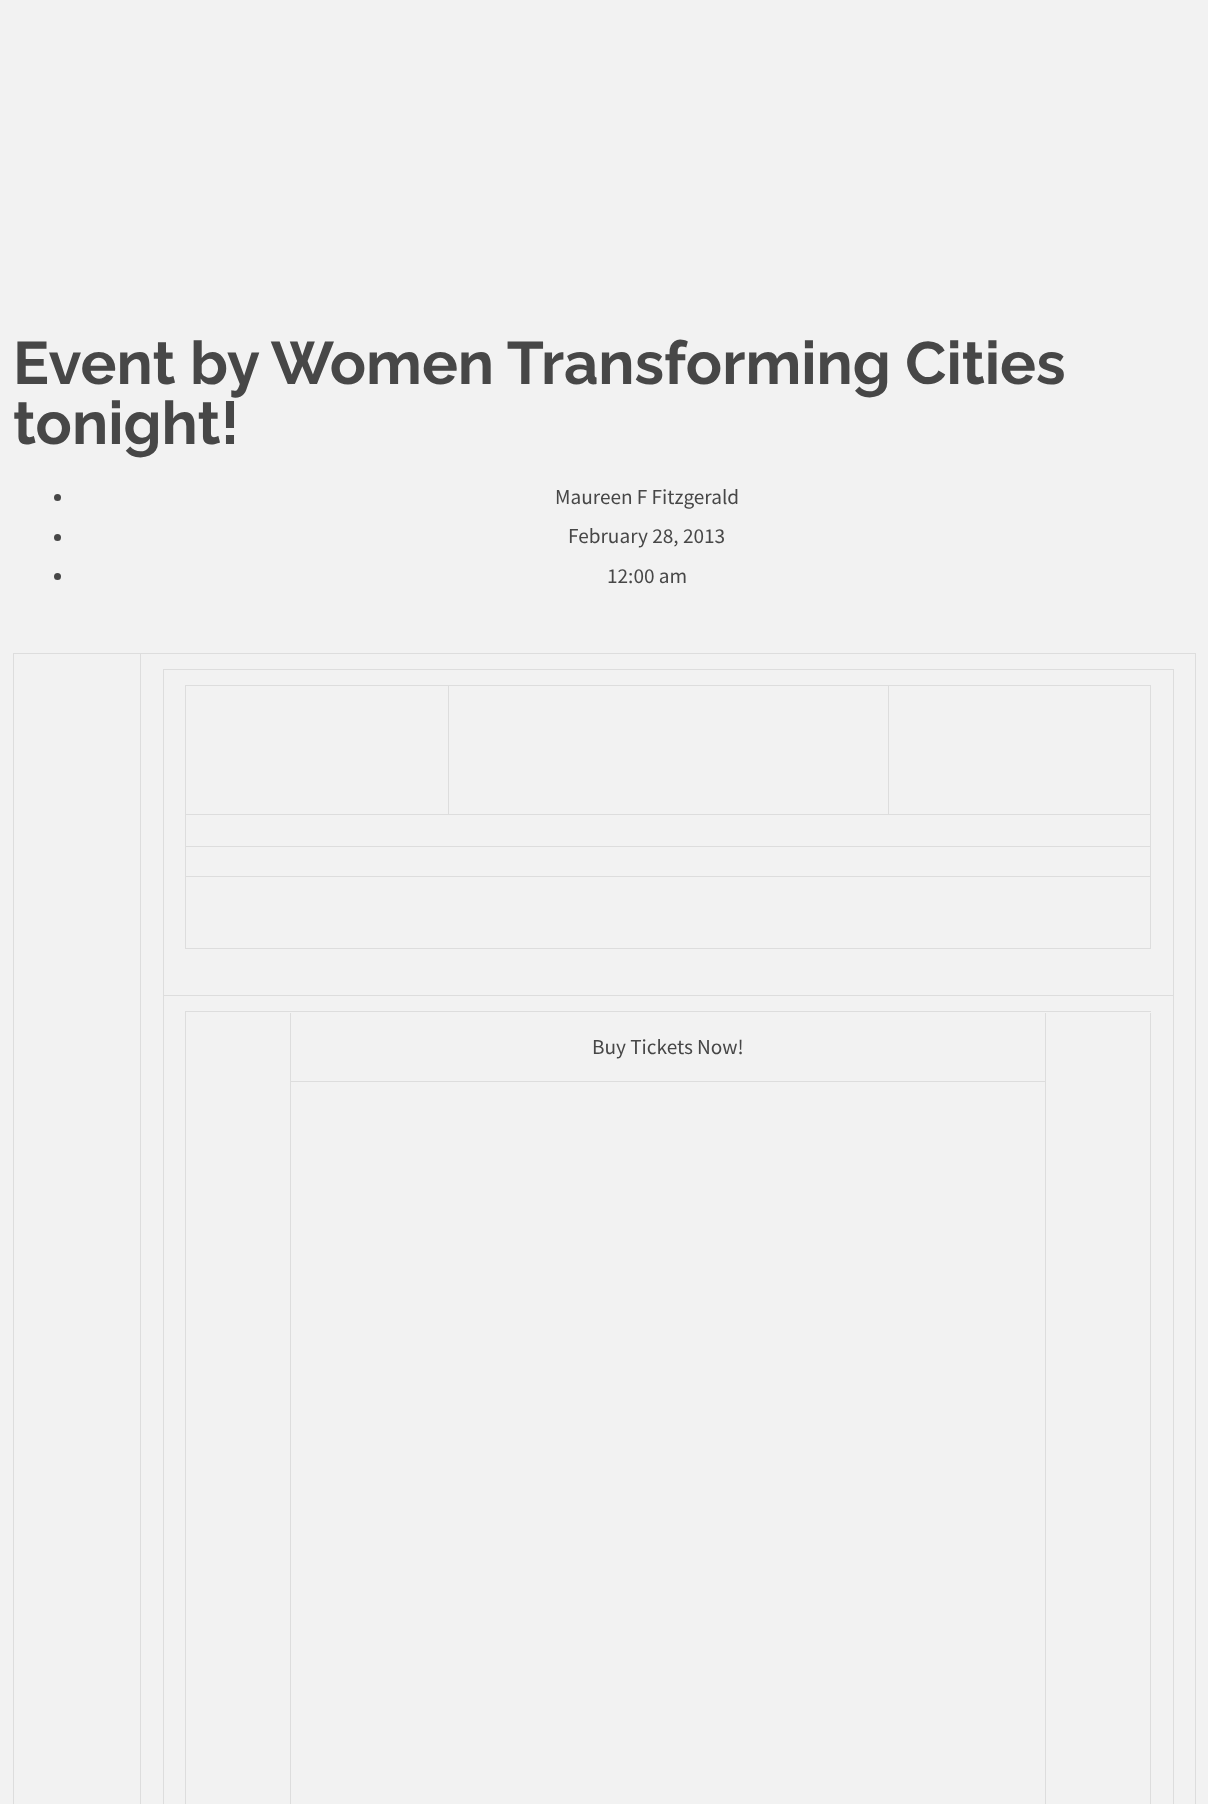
async function draw(canvas) {
  canvas.width = 1208
  canvas.height = 1804
  const ctx = canvas.getContext('2d')
  ctx.miterLimit = 4
  ctx.fontKerning = 'normal'

  ctx.fillStyle = '#f2f2f2'
  ctx.fillRect(0, 0, 1208, 1804)
  ctx.font = 'bold 60px Raleway'
  ctx.fillStyle = '#474747'
  ctx.fillText('Event by Women Transforming Cities', 13, 384)
  ctx.fillText('tonight!', 13, 444)
  ctx.beginPath()
  ctx.arc(57.5, 497.5, 3.5, 0, 2 * Math.PI)
  ctx.fill()
  ctx.font = '21.25px Source Sans Pro'
  ctx.fillText('Maureen F Fitzgerald', 555, 504)
  ctx.beginPath()
  ctx.arc(57.5, 537.5, 3.5, 0, 2 * Math.PI)
  ctx.fill()
  ctx.fillText('February 28, 2013', 568, 543)
  ctx.beginPath()
  ctx.arc(57.5, 576.5, 3.5, 0, 2 * Math.PI)
  ctx.fill()
  ctx.fillText('12:00 am', 607, 583)
  ctx.fillStyle = '#ddd'
  ctx.fillRect(13, 653, 1183, 1)
  ctx.fillRect(13, 653, 1, 1151)
  ctx.fillRect(140, 654, 1, 1150)
  ctx.fillRect(1195, 654, 1, 1150)
  ctx.fillRect(163, 669, 1011, 1)
  ctx.fillRect(163, 669, 1, 1135)
  ctx.fillRect(1173, 670, 1, 1134)
  ctx.fillRect(164, 995, 1010, 1)
  ctx.fillRect(185, 685, 966, 1)
  ctx.fillRect(185, 685, 1, 264)
  ctx.fillRect(448, 686, 1, 129)
  ctx.fillRect(186, 814, 263, 1)
  ctx.fillRect(888, 686, 1, 129)
  ctx.fillRect(449, 814, 440, 1)
  ctx.fillRect(1150, 686, 1, 263)
  ctx.fillRect(889, 814, 262, 1)
  ctx.fillRect(186, 846, 965, 1)
  ctx.fillRect(186, 876, 965, 1)
  ctx.fillRect(186, 948, 965, 1)
  ctx.fillRect(185, 1011, 966, 1)
  ctx.fillRect(185, 1011, 1, 793)
  ctx.fillRect(290, 1013, 1, 791)
  ctx.fillRect(1045, 1013, 1, 791)
  ctx.fillRect(291, 1081, 755, 1)
  ctx.fillStyle = '#474747'
  ctx.fillText('Buy Tickets Now!', 592, 1054)
  ctx.fillStyle = '#ddd'
  ctx.fillRect(1150, 1013, 1, 791)
}

draw(document.querySelector('canvas'))
